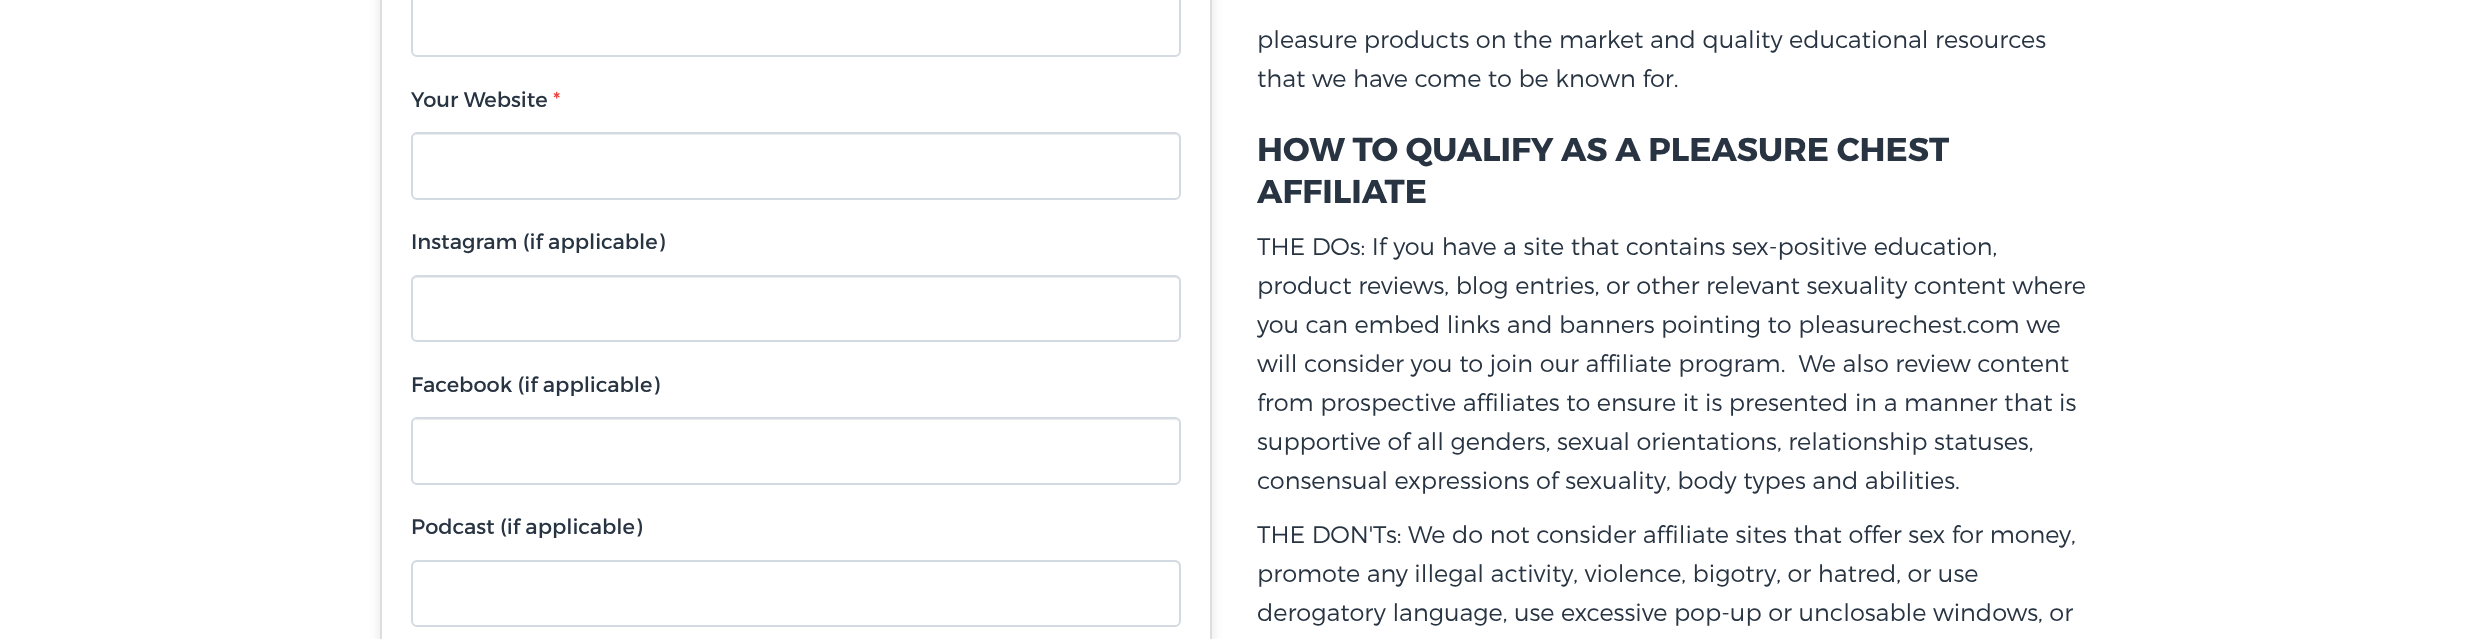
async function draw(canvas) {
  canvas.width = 2468
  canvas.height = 639
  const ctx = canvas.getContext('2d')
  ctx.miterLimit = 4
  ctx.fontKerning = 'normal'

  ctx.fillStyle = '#fff'
  ctx.fillRect(0, 0, 2468, 639)
  ctx.save()
  ctx.beginPath()
  ctx.moveTo(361, 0)
  ctx.lineTo(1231, 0)
  ctx.lineTo(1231, 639)
  ctx.lineTo(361, 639)
  ctx.closePath()
  ctx.moveTo(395, -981)
  ctx.lineTo(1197, -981)
  ctx.bezierCurveTo(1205.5, -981, 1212, -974.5, 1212, -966)
  ctx.lineTo(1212, 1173)
  ctx.bezierCurveTo(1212, 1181.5, 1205.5, 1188, 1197, 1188)
  ctx.lineTo(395, 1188)
  ctx.bezierCurveTo(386.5, 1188, 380, 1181.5, 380, 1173)
  ctx.lineTo(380, -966)
  ctx.bezierCurveTo(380, -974.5, 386.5, -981, 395, -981)
  ctx.closePath()
  ctx.clip('evenodd')
  ctx.fillStyle = '#0000001a'
  ctx.filter = 'blur(6px)'
  ctx.beginPath()
  ctx.roundRect(380, -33, 832, 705, 15)
  ctx.fill()
  ctx.filter = 'none'
  ctx.restore()
  ctx.strokeStyle = '#ddd'
  ctx.lineWidth = 2
  ctx.strokeRect(381, -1, 830, 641)
  ctx.beginPath()
  ctx.roundRect(412, -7, 768, 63, 5)
  ctx.strokeStyle = '#d4dae2'
  ctx.stroke()
  ctx.font = '21px Montserrat'
  ctx.fillStyle = '#283442'
  ctx.fillText('Your Website', 411, 107)
  ctx.fillStyle = '#f43f3c'
  ctx.fillText('*', 553, 107)
  ctx.fillStyle = '#ececec'
  ctx.beginPath()
  ctx.moveTo(417, 135)
  ctx.lineTo(1174, 135)
  ctx.bezierCurveTo(1177, 135, 1179, 137, 1179, 140)
  ctx.lineTo(1179, 139)
  ctx.bezierCurveTo(1179, 136, 1177, 134, 1174, 134)
  ctx.lineTo(418, 134)
  ctx.bezierCurveTo(416, 134, 415, 135, 414, 136)
  ctx.closePath()
  ctx.fill()
  ctx.beginPath()
  ctx.roundRect(412, 133, 768, 66, 5)
  ctx.stroke()
  ctx.fillStyle = '#283442'
  ctx.fillText('Instagram (if applicable)', 411, 249)
  ctx.fillStyle = '#ececec'
  ctx.beginPath()
  ctx.moveTo(417, 278)
  ctx.lineTo(1174, 278)
  ctx.bezierCurveTo(1177, 278, 1179, 280, 1179, 282)
  ctx.lineTo(1179, 281)
  ctx.bezierCurveTo(1179, 278, 1177, 276, 1174, 276)
  ctx.lineTo(418, 276)
  ctx.bezierCurveTo(416, 276, 414, 278, 413, 280)
  ctx.bezierCurveTo(414, 279, 416, 278, 417, 278)
  ctx.closePath()
  ctx.fill()
  ctx.beginPath()
  ctx.roundRect(412, 276, 768, 65, 5)
  ctx.stroke()
  ctx.fillStyle = '#283442'
  ctx.fillText('Facebook (if applicable)', 411, 392)
  ctx.fillStyle = '#ececec'
  ctx.beginPath()
  ctx.moveTo(417, 420)
  ctx.lineTo(1174, 420)
  ctx.bezierCurveTo(1177, 420, 1179, 422, 1179, 424)
  ctx.bezierCurveTo(1179, 421, 1177, 419, 1174, 419)
  ctx.lineTo(418, 419)
  ctx.bezierCurveTo(416, 419, 415, 420, 414, 421)
  ctx.closePath()
  ctx.fill()
  ctx.beginPath()
  ctx.roundRect(412, 418, 768, 66, 5)
  ctx.stroke()
  ctx.fillStyle = '#283442'
  ctx.fillText('Podcast (if applicable)', 411, 534)
  ctx.fillStyle = '#ececec'
  ctx.beginPath()
  ctx.moveTo(417, 562)
  ctx.lineTo(1174, 562)
  ctx.bezierCurveTo(1177, 562, 1179, 565, 1179, 567)
  ctx.lineTo(1179, 566)
  ctx.bezierCurveTo(1179, 563, 1177, 561, 1174, 561)
  ctx.lineTo(418, 561)
  ctx.bezierCurveTo(416, 561, 414, 562, 413, 564)
  ctx.bezierCurveTo(414, 563, 416, 562, 417, 562)
  ctx.closePath()
  ctx.fill()
  ctx.beginPath()
  ctx.roundRect(412, 561, 768, 65, 5)
  ctx.stroke()
  ctx.font = '300 24px Montserrat'
  ctx.fillStyle = '#283442'
  ctx.fillText('pleasure products on the market and quality educational resources', 1257, 48)
  ctx.fillText('that we have come to be known for.', 1257, 87)
  ctx.font = 'bold 33px Montserrat'
  ctx.fillText('HOW TO QUALIFY AS A PLEASURE CHEST', 1257, 161)
  ctx.fillText('AFFILIATE', 1257, 203)
  ctx.font = '300 24px Montserrat'
  ctx.fillText('THE DOs: If you have a site that contains sex-positive education,', 1257, 255)
  ctx.fillText('product reviews, blog entries, or other relevant sexuality content where', 1257, 294)
  ctx.fillText('you can embed links and banners pointing to pleasurechest.com we', 1257, 333)
  ctx.fillText('will consider you to join our affiliate program.  We also review content', 1257, 372)
  ctx.fillText('from prospective affiliates to ensure it is presented in a manner that is', 1257, 411)
  ctx.fillText('supportive of all genders, sexual orientations, relationship statuses,', 1257, 450)
  ctx.fillText('consensual expressions of sexuality, body types and abilities.', 1257, 489)
  ctx.fillText('THE DON\'Ts: We do not consider affiliate sites that offer sex for money,', 1257, 543)
  ctx.fillText('promote any illegal activity, violence, bigotry, or hatred, or use', 1257, 582)
  ctx.fillText('derogatory language, use excessive pop-up or unclosable windows, or', 1257, 621)
}

draw(document.querySelector('canvas'))
